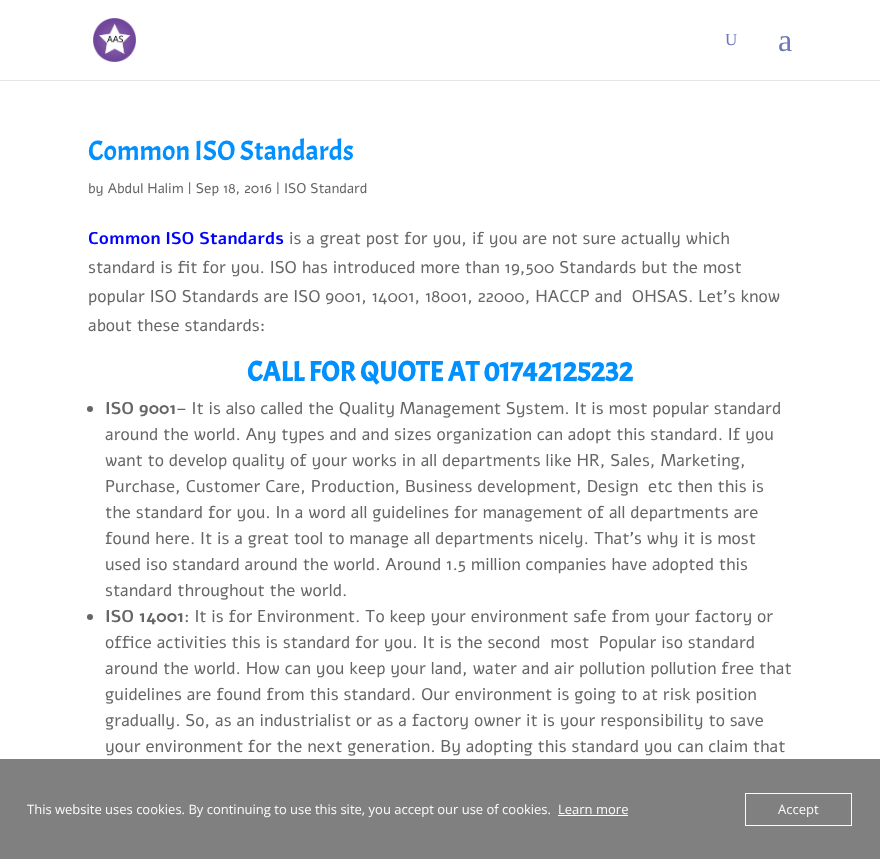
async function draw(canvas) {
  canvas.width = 880
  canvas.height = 859
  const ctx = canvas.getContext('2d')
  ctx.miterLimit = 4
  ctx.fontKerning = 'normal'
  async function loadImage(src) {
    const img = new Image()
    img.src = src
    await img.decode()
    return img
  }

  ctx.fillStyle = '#fff'
  ctx.fillRect(0, 0, 880, 859)
  ctx.fillStyle = '#e6e6e6'
  ctx.fillRect(0, 80, 880, 1)
  ctx.drawImage(await loadImage('image0.png'), 93, 18, 43, 44)
  ctx.font = '17px Liberation Serif'
  ctx.fillStyle = '#6e76bb'
  ctx.fillText('U', 725, 45)
  ctx.font = '32px Liberation Serif'
  ctx.fillText('a', 778, 51)
  ctx.fillStyle = '#808080'
  ctx.fillRect(0, 759, 880, 100)
  ctx.font = '28px Acme'
  ctx.fillStyle = '#0090ff'
  ctx.fillText('Common ISO Standards', 88, 160)
  ctx.font = '14px Alef'
  ctx.fillStyle = '#666'
  ctx.fillText('by Abdul Halim | Sep 18, 2016 | ISO Standard', 88, 193)
  ctx.font = 'bold 17px Alef'
  ctx.fillStyle = '#00f'
  ctx.fillText('Common ISO Standards', 88, 244)
  ctx.font = '17px Alef'
  ctx.fillStyle = '#666'
  ctx.fillText('is a great post for you, if you are not sure actually which', 289, 244)
  ctx.fillText('standard is fit for you. ISO has introduced more than 19,500 Standards but the most', 88, 273)
  ctx.fillText('popular ISO Standards are ISO 9001, 14001, 18001, 22000, HACCP and  OHSAS. Let’s know', 88, 302)
  ctx.fillText('about these standards:', 88, 331)
  ctx.font = 'bold 28px Acme'
  ctx.fillStyle = '#0090ff'
  ctx.fillText('CALL FOR QUOTE AT 01742125232', 247, 381)
  ctx.fillStyle = '#666'
  ctx.beginPath()
  ctx.arc(90, 409, 3, 0, 2 * Math.PI)
  ctx.fill()
  ctx.font = 'bold 17px Alef'
  ctx.fillText('ISO 9001', 105, 414)
  ctx.font = '17px Alef'
  ctx.fillText('– It is also called the Quality Management System. It is most popular standard', 176, 414)
  ctx.fillText('around the world. Any types and and sizes organization can adopt this standard. If you', 105, 440)
  ctx.fillText('want to develop quality of your works in all departments like HR, Sales, Marketing,', 105, 466)
  ctx.fillText('Purchase, Customer Care, Production, Business development, Design  etc then this is', 105, 492)
  ctx.fillText('the standard for you. In a word all guidelines for management of all departments are', 105, 518)
  ctx.fillText('found here. It is a great tool to manage all departments nicely. That’s why it is most', 105, 544)
  ctx.fillText('used iso standard around the world. Around 1.5 million companies have adopted this', 105, 570)
  ctx.fillText('standard throughout the world.', 105, 596)
  ctx.beginPath()
  ctx.arc(90, 617, 3, 0, 2 * Math.PI)
  ctx.fill()
  ctx.font = 'bold 17px Alef'
  ctx.fillText('ISO 14001', 105, 622)
  ctx.font = '17px Alef'
  ctx.fillText(': It is for Environment. To keep your environment safe from your factory or', 184, 622)
  ctx.fillText('office activities this is standard for you. It is the second  most  Popular iso standard', 105, 648)
  ctx.fillText('around the world. How can you keep your land, water and air pollution pollution free that', 105, 674)
  ctx.fillText('guidelines are found from this standard. Our environment is going to at risk position', 105, 700)
  ctx.fillText('gradually. So, as an industrialist or as a factory owner it is your responsibility to save', 105, 726)
  ctx.fillText('your environment for the next generation. By adopting this standard you can claim that', 105, 752)
  ctx.font = '13px Open Sans'
  ctx.fillStyle = '#fbfbfb'
  ctx.fillText('This website uses cookies. By continuing to use this site, you accept our use of cookies.', 27, 814)
  ctx.fillText('Learn more', 558, 814)
  ctx.fillStyle = '#fff'
  ctx.fillRect(558, 815, 70, 1)
  ctx.strokeStyle = '#fffffff7'
  ctx.strokeRect(745.5, 793.5, 106, 32)
  ctx.fillStyle = '#fbfbfb'
  ctx.fillText('Accept', 778, 814)
}

draw(document.querySelector('canvas'))
